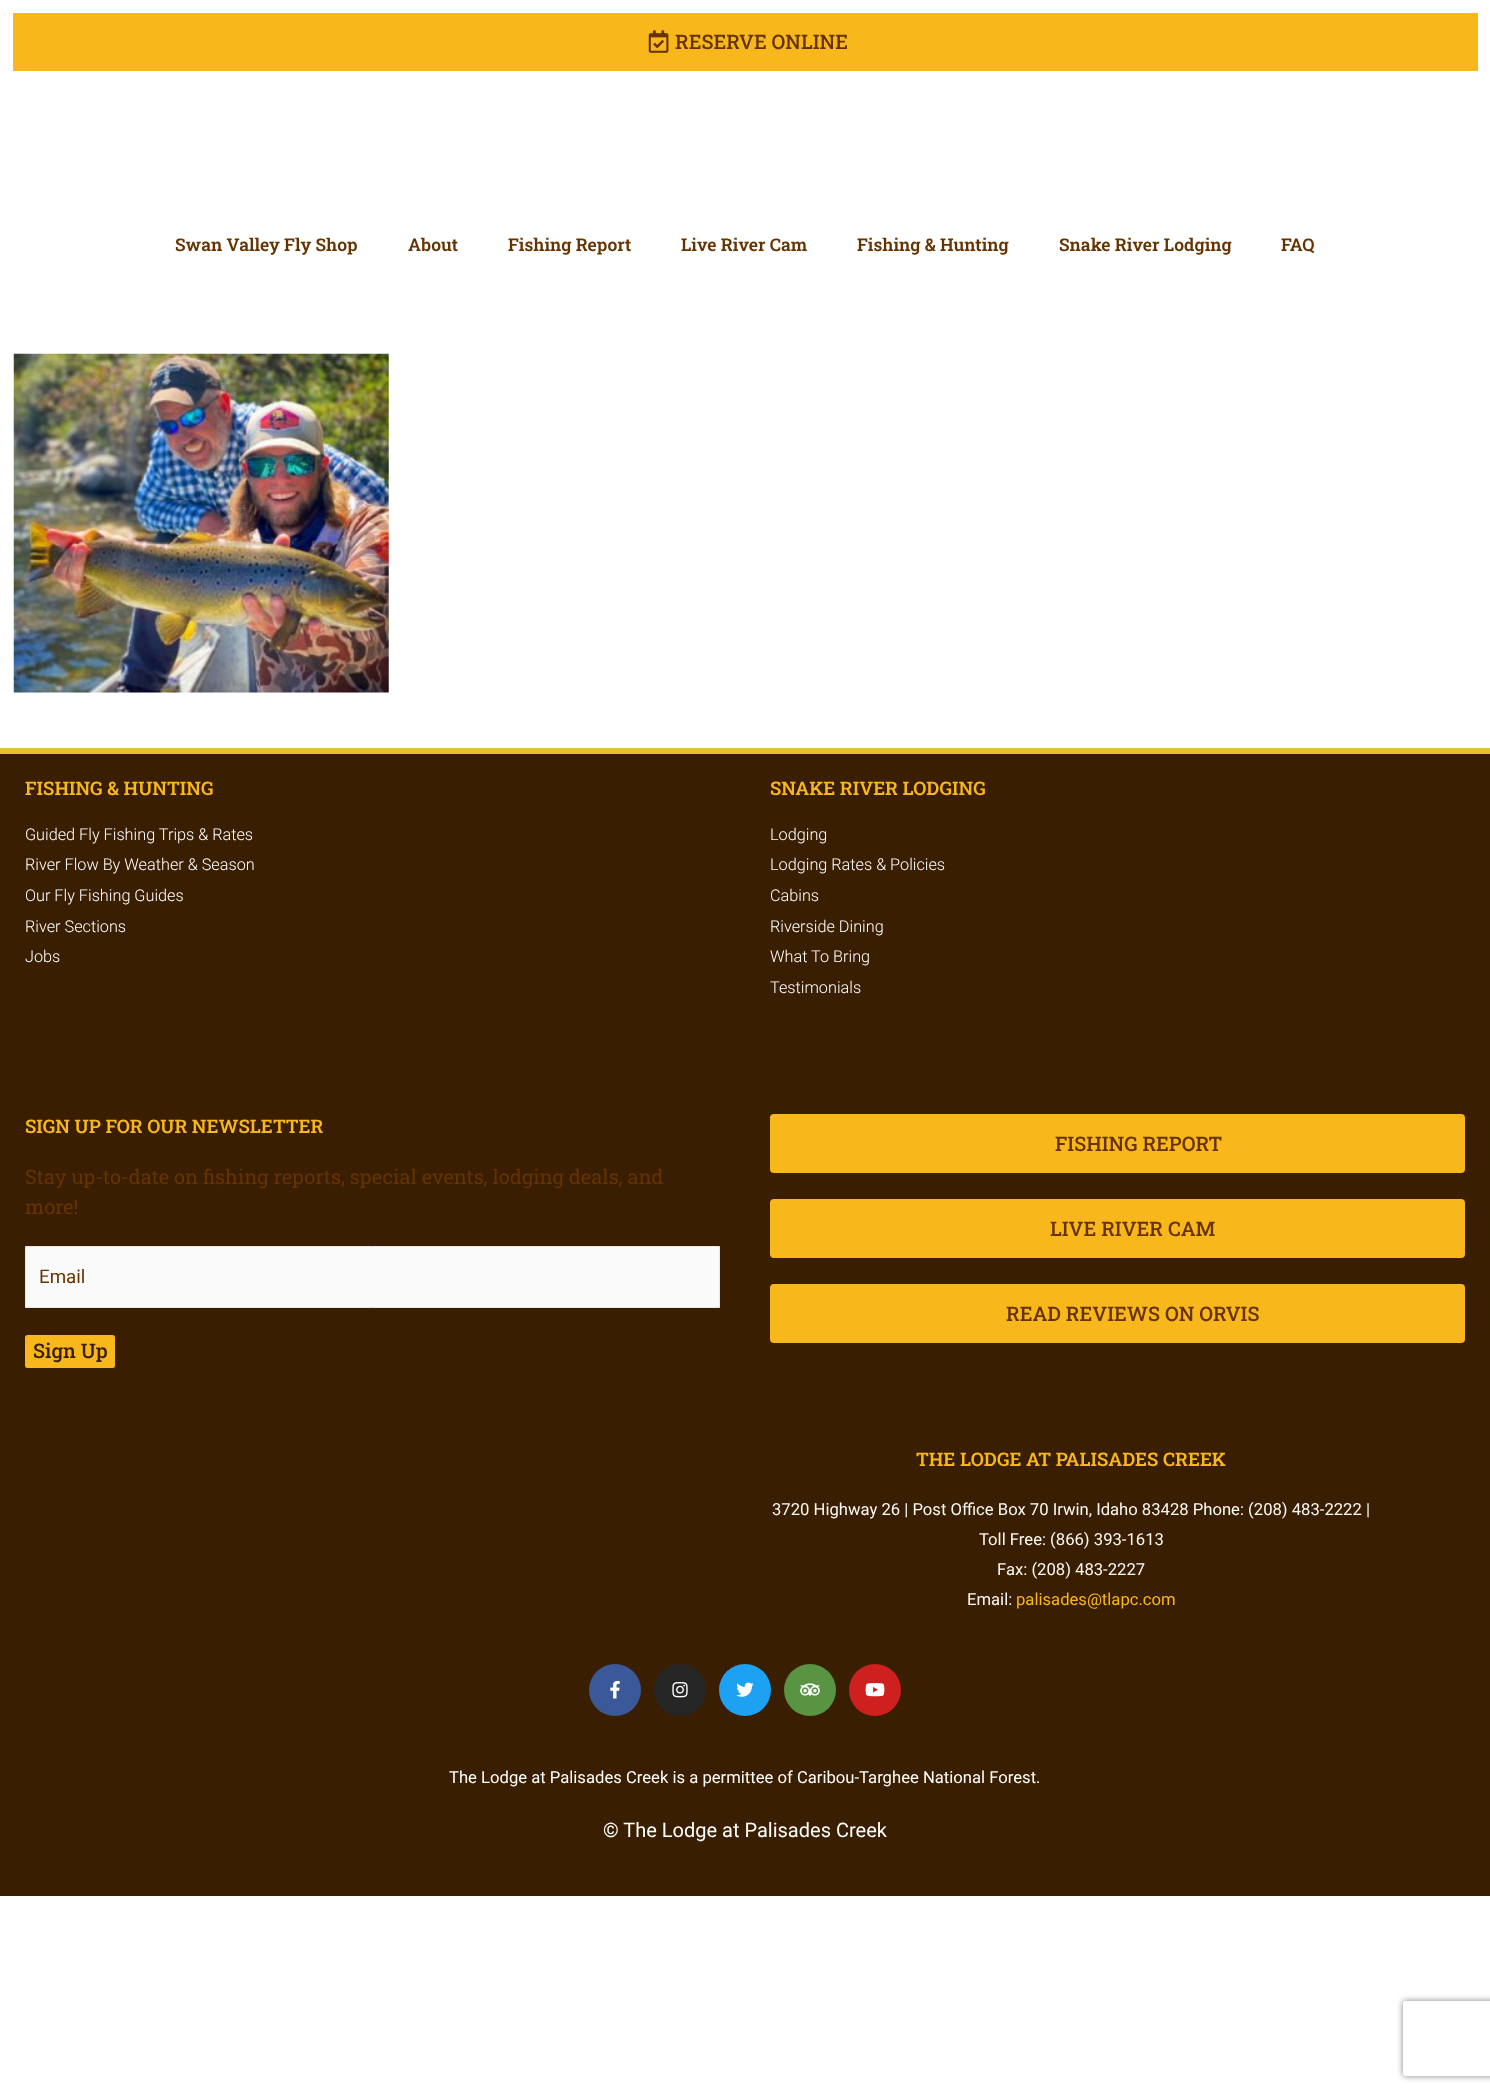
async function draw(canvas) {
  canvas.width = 1490
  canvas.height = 2093
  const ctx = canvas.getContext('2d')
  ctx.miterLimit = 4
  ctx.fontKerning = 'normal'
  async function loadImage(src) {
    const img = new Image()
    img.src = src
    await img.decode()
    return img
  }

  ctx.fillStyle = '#fff'
  ctx.fillRect(0, 0, 1490, 2093)
  ctx.fillStyle = '#f8b71b'
  ctx.fillRect(13, 13, 1465, 58)
  ctx.drawImage(await loadImage('image0.png'), 648, 30, 21, 23)
  ctx.font = '500 20px Roboto Slab'
  ctx.fillStyle = '#630'
  ctx.fillText('RESERVE ONLINE', 675, 49)
  ctx.font = '600 17.5px Roboto Slab'
  ctx.fillText('Swan Valley Fly Shop', 175, 251)
  ctx.fillText('About', 408, 251)
  ctx.fillText('Fishing Report', 508, 251)
  ctx.fillText('Live River Cam', 681, 251)
  ctx.fillText('Fishing & Hunting', 857, 251)
  ctx.fillText('Snake River Lodging', 1059, 251)
  ctx.fillText('FAQ', 1281, 251)
  ctx.drawImage(await loadImage('image1.png'), 13, 353, 376, 340)
  ctx.fillStyle = '#3a1e01'
  ctx.fillRect(0, 754, 1490, 1142)
  ctx.fillStyle = '#e8c12f'
  ctx.fillRect(0, 748, 1490, 6)
  ctx.font = '600 18.75px Roboto Slab'
  ctx.fillStyle = '#f8b71b'
  ctx.fillText('FISHING & HUNTING', 25, 795)
  ctx.font = '300 16.25px Roboto'
  ctx.fillStyle = '#fff'
  ctx.fillText('Guided Fly Fishing Trips & Rates', 25, 840)
  ctx.fillText('River Flow By Weather & Season', 25, 870)
  ctx.fillText('Our Fly Fishing Guides', 25, 901)
  ctx.fillText('River Sections', 25, 932)
  ctx.fillText('Jobs', 25, 962)
  ctx.font = '600 18.75px Roboto Slab'
  ctx.fillStyle = '#f8b71b'
  ctx.fillText('SNAKE RIVER LODGING', 770, 795)
  ctx.font = '300 16.25px Roboto'
  ctx.fillStyle = '#fff'
  ctx.fillText('Lodging', 770, 840)
  ctx.fillText('Lodging Rates & Policies', 770, 870)
  ctx.fillText('Cabins', 770, 901)
  ctx.fillText('Riverside Dining', 770, 932)
  ctx.fillText('What To Bring', 770, 962)
  ctx.fillText('Testimonials', 770, 993)
  ctx.font = '600 18.75px Roboto Slab'
  ctx.fillStyle = '#f8b71b'
  ctx.fillText('SIGN UP FOR OUR NEWSLETTER', 25, 1133)
  ctx.font = '20px Roboto Slab'
  ctx.fillStyle = '#630'
  ctx.fillText('Stay up-to-date on fishing reports, special events, lodging deals, and', 25, 1184)
  ctx.fillText('more!', 25, 1214)
  ctx.fillStyle = '#fafafa'
  ctx.beginPath()
  ctx.rect(25.5, 1246.5, 694, 61)
  ctx.fill()
  ctx.strokeStyle = '#eaeaea'
  ctx.stroke()
  ctx.font = '18.75px Roboto'
  ctx.fillStyle = '#630'
  ctx.fillText('Email', 39, 1283)
  ctx.save()
  ctx.beginPath()
  ctx.moveTo(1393, 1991)
  ctx.lineTo(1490, 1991)
  ctx.lineTo(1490, 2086)
  ctx.lineTo(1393, 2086)
  ctx.closePath()
  ctx.moveTo(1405.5, 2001)
  ctx.lineTo(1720.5, 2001)
  ctx.bezierCurveTo(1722, 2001, 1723, 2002, 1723, 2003.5)
  ctx.lineTo(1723, 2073.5)
  ctx.bezierCurveTo(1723, 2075, 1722, 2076, 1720.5, 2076)
  ctx.lineTo(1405.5, 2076)
  ctx.bezierCurveTo(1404, 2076, 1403, 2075, 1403, 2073.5)
  ctx.lineTo(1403, 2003.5)
  ctx.bezierCurveTo(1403, 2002, 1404, 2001, 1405.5, 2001)
  ctx.closePath()
  ctx.clip('evenodd')
  ctx.fillStyle = '#808080'
  ctx.filter = 'blur(3px)'
  ctx.beginPath()
  ctx.roundRect(1403, 2001, 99, 75, 2.5)
  ctx.fill()
  ctx.filter = 'none'
  ctx.restore()
  ctx.fillStyle = '#f8b71b'
  ctx.beginPath()
  ctx.roundRect(25, 1335, 90, 33, 2.5)
  ctx.fill()
  ctx.font = '500 20px Roboto Slab'
  ctx.fillStyle = '#3a1e01'
  ctx.fillText('Sign Up', 33, 1358)
  ctx.fillStyle = '#f8b71b'
  ctx.beginPath()
  ctx.roundRect(770, 1114, 695, 59, 4)
  ctx.fill()
  ctx.fillStyle = '#630'
  ctx.fillText('FISHING REPORT', 1055, 1151)
  ctx.fillStyle = '#f8b71b'
  ctx.beginPath()
  ctx.roundRect(770, 1199, 695, 59, 4)
  ctx.fill()
  ctx.fillStyle = '#630'
  ctx.fillText('LIVE RIVER CAM', 1050, 1236)
  ctx.fillStyle = '#f8b71b'
  ctx.beginPath()
  ctx.roundRect(770, 1284, 695, 59, 4)
  ctx.fill()
  ctx.fillStyle = '#630'
  ctx.fillText('READ REVIEWS ON ORVIS', 1006, 1321)
  ctx.font = '600 18.75px Roboto Slab'
  ctx.fillStyle = '#f8b71b'
  ctx.fillText('THE LODGE AT PALISADES CREEK', 916, 1466)
  ctx.font = '16.65px Roboto'
  ctx.fillStyle = '#fbf9f6'
  ctx.fillText('3720 Highway 26 | Post Office Box 70 Irwin, Idaho 83428 Phone: (208) 483-2222 |', 772, 1515)
  ctx.fillText('Toll Free: (866) 393-1613', 979, 1545)
  ctx.fillText('Fax: (208) 483-2227', 997, 1575)
  ctx.fillText('Email:', 967, 1605)
  ctx.fillStyle = '#f8b71b'
  ctx.fillText('palisades@tlapc.com', 1016, 1605)
  ctx.fillStyle = '#3b5998'
  ctx.beginPath()
  ctx.arc(615, 1690, 26, 0, 2 * Math.PI)
  ctx.fill()
  ctx.drawImage(await loadImage('image2.png'), 610, 1680, 10, 19)
  ctx.fillStyle = '#262626'
  ctx.beginPath()
  ctx.arc(680, 1690, 26, 0, 2 * Math.PI)
  ctx.fill()
  ctx.drawImage(await loadImage('image3.png'), 672, 1682, 16, 16)
  ctx.fillStyle = '#1da1f2'
  ctx.beginPath()
  ctx.arc(745, 1690, 26, 0, 2 * Math.PI)
  ctx.fill()
  ctx.drawImage(await loadImage('image4.png'), 736, 1682, 18, 15)
  ctx.fillStyle = '#589442'
  ctx.beginPath()
  ctx.arc(810, 1690, 26, 0, 2 * Math.PI)
  ctx.fill()
  ctx.drawImage(await loadImage('image5.png'), 800, 1683, 20, 13)
  ctx.fillStyle = '#cd201f'
  ctx.beginPath()
  ctx.arc(875, 1690, 26, 0, 2 * Math.PI)
  ctx.fill()
  ctx.drawImage(await loadImage('image6.png'), 865, 1683, 20, 14)
  ctx.fillStyle = '#fff'
  ctx.fillText('The Lodge at Palisades Creek is a permittee of Caribou-Targhee National Forest.', 449, 1783)
  ctx.font = '20px Roboto'
  ctx.fillText('© The Lodge at Palisades Creek', 603, 1837)
}

draw(document.querySelector('canvas'))
